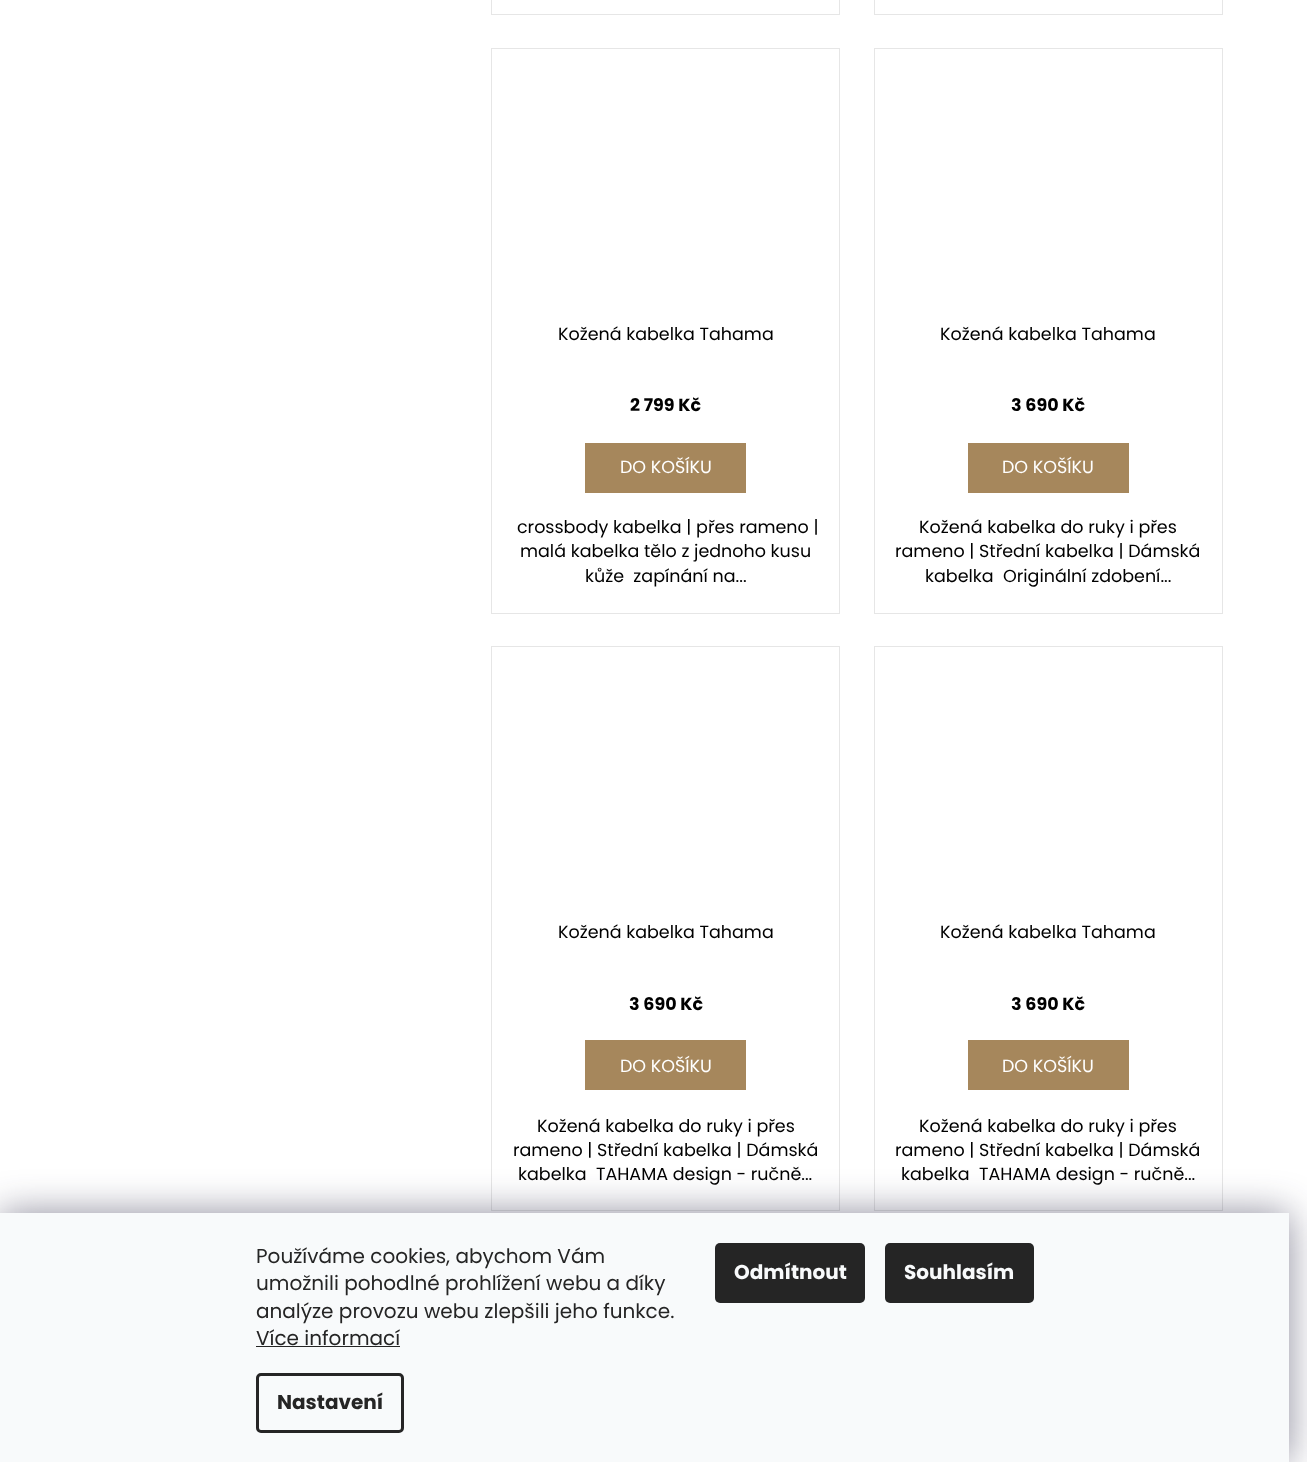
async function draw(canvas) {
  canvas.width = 1307
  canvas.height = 1462
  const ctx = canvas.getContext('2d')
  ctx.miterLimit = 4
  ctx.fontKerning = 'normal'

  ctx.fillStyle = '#fff'
  ctx.fillRect(0, 0, 1307, 1462)
  ctx.strokeStyle = '#e6e6e6'
  ctx.strokeRect(491.5, -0.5, 348, 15)
  ctx.strokeRect(874.5, -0.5, 348, 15)
  ctx.strokeRect(491.5, 48.5, 348, 565)
  ctx.font = '17.5px Poppins'
  ctx.fillStyle = '#000'
  ctx.fillText('Kožená kabelka Tahama', 558, 340)
  ctx.font = 'bold 17.5px Poppins'
  ctx.fillText('2 799 Kč', 630, 411)
  ctx.fillStyle = '#a6875c'
  ctx.fillRect(585, 443, 161, 50)
  ctx.font = '17.5px Poppins'
  ctx.fillStyle = '#fff'
  ctx.fillText('DO KOŠÍKU', 620, 473)
  ctx.fillStyle = '#000'
  ctx.fillText('crossbody kabelka | přes rameno |', 517, 533)
  ctx.fillText('malá kabelka tělo z jednoho kusu', 520, 557)
  ctx.fillText('kůže  zapínání na...', 585, 582)
  ctx.strokeRect(874.5, 48.5, 348, 565)
  ctx.fillText('Kožená kabelka Tahama', 940, 340)
  ctx.font = 'bold 17.5px Poppins'
  ctx.fillText('3 690 Kč', 1011, 411)
  ctx.fillStyle = '#a6875c'
  ctx.fillRect(968, 443, 161, 50)
  ctx.font = '17.5px Poppins'
  ctx.fillStyle = '#fff'
  ctx.fillText('DO KOŠÍKU', 1002, 473)
  ctx.fillStyle = '#000'
  ctx.fillText('Kožená kabelka do ruky i přes', 919, 533)
  ctx.fillText('rameno | Střední kabelka | Dámská', 895, 557)
  ctx.fillText('kabelka  Originální zdobení...', 925, 582)
  ctx.strokeRect(491.5, 646.5, 348, 564)
  ctx.fillText('Kožená kabelka Tahama', 558, 938)
  ctx.font = 'bold 17.5px Poppins'
  ctx.fillText('3 690 Kč', 629, 1010)
  ctx.fillStyle = '#a6875c'
  ctx.fillRect(585, 1040, 161, 50)
  ctx.font = '17.5px Poppins'
  ctx.fillStyle = '#fff'
  ctx.fillText('DO KOŠÍKU', 620, 1072)
  ctx.fillStyle = '#000'
  ctx.fillText('Kožená kabelka do ruky i přes', 537, 1132)
  ctx.fillText('rameno | Střední kabelka | Dámská', 513, 1156)
  ctx.fillText('kabelka', 518, 1180)
  ctx.fillText('TAHAMA design - ručně...', 596, 1180)
  ctx.strokeRect(874.5, 646.5, 348, 564)
  ctx.fillText('Kožená kabelka Tahama', 940, 938)
  ctx.font = 'bold 17.5px Poppins'
  ctx.fillText('3 690 Kč', 1011, 1010)
  ctx.fillStyle = '#a6875c'
  ctx.fillRect(968, 1040, 161, 50)
  ctx.font = '17.5px Poppins'
  ctx.fillStyle = '#fff'
  ctx.fillText('DO KOŠÍKU', 1002, 1072)
  ctx.fillStyle = '#000'
  ctx.fillText('Kožená kabelka do ruky i přes', 919, 1132)
  ctx.fillText('rameno | Střední kabelka | Dámská', 895, 1156)
  ctx.fillText('kabelka', 901, 1180)
  ctx.fillText('TAHAMA design - ručně...', 979, 1180)
  ctx.fillStyle = '#1b193980'
  ctx.filter = 'blur(19px)'
  ctx.beginPath()
  ctx.rect(0, 1213, 1289, 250)
  ctx.fill()
  ctx.filter = 'none'
  ctx.fillStyle = '#f8fafb'
  ctx.fillRect(0, 1213, 1289, 249)
  ctx.font = '20px Poppins'
  ctx.fillStyle = '#252525'
  ctx.fillText('Používáme cookies, abychom Vám', 256, 1263)
  ctx.fillText('umožnili pohodlné prohlížení webu a díky', 256, 1290)
  ctx.fillText('analýze provozu webu zlepšili jeho funkce.', 256, 1318)
  ctx.fillText('Více informací', 256, 1345)
  ctx.fillRect(256, 1346, 144, 1)
  ctx.beginPath()
  ctx.roundRect(257.5, 1374.5, 145, 57, 3.5)
  ctx.strokeStyle = '#252525'
  ctx.lineWidth = 3
  ctx.stroke()
  ctx.font = 'bold 20px Poppins'
  ctx.fillText('Nastavení', 277, 1409)
  ctx.beginPath()
  ctx.roundRect(715, 1243, 150, 60, 5)
  ctx.fill()
  ctx.fillStyle = '#f8fafb'
  ctx.fillText('Odmítnout', 734, 1279)
  ctx.fillStyle = '#252525'
  ctx.beginPath()
  ctx.roundRect(885, 1243, 149, 60, 5)
  ctx.fill()
  ctx.fillStyle = '#f8fafb'
  ctx.fillText('Souhlasím', 904, 1279)
}

draw(document.querySelector('canvas'))
